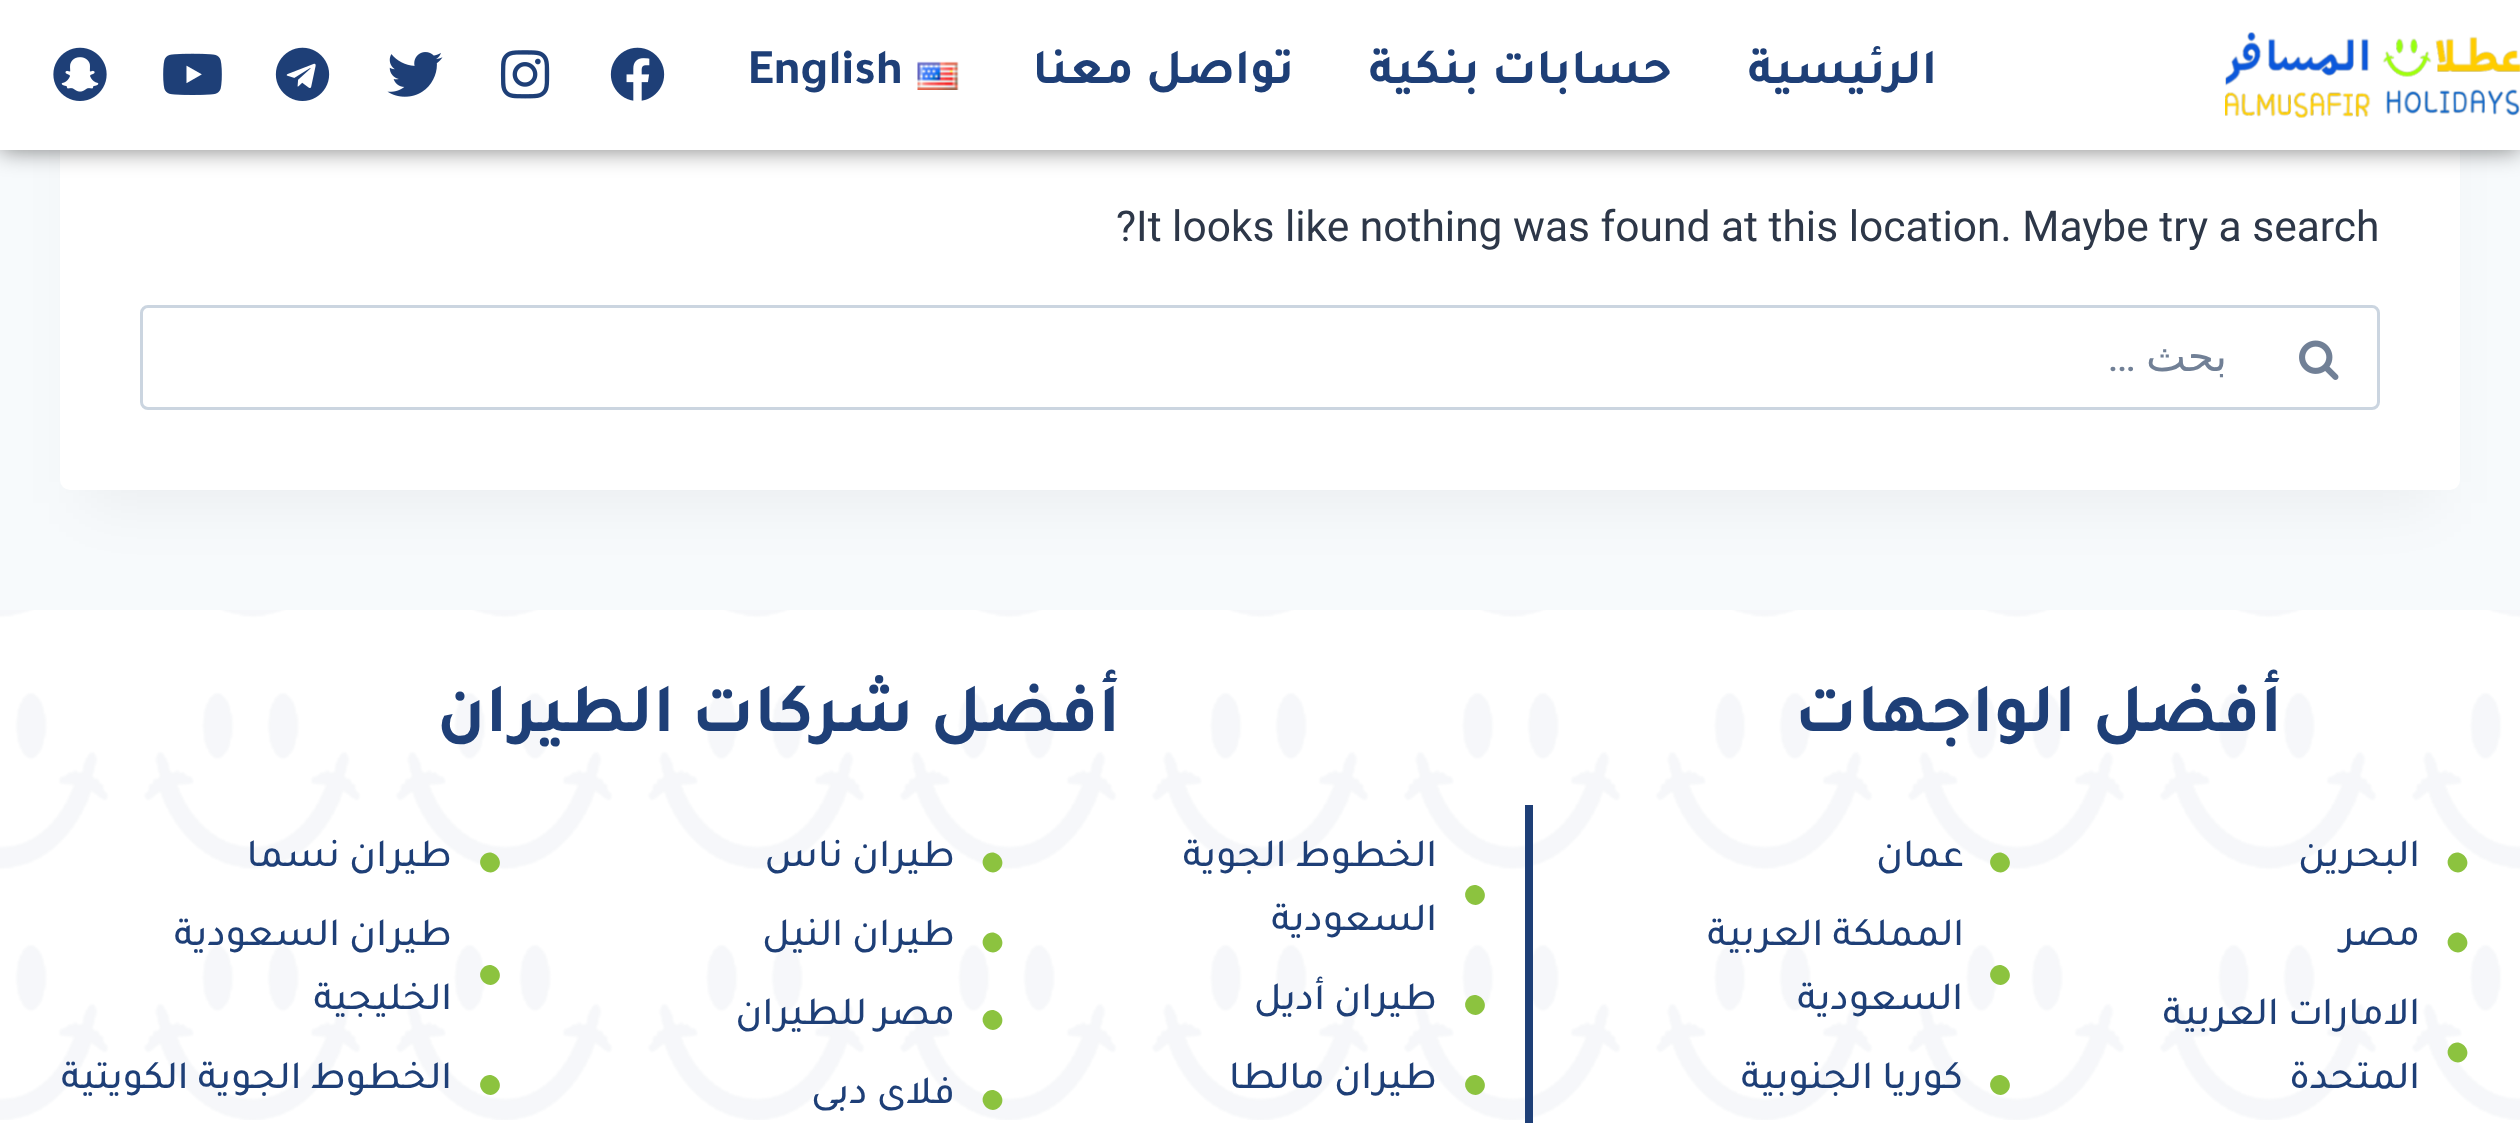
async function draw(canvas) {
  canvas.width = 2520
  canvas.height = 1123
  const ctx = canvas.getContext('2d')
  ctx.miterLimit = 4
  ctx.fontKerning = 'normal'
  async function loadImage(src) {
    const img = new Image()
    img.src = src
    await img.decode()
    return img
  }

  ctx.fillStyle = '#f7fafc'
  ctx.fillRect(0, 0, 2520, 1123)
  ctx.fillStyle = '#0000000d'
  ctx.filter = 'blur(31px)'
  ctx.beginPath()
  ctx.rect(85, -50, 2350, 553)
  ctx.fill()
  ctx.filter = 'none'
  ctx.fillStyle = '#fff'
  ctx.beginPath()
  ctx.roundRect(60, -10, 2400, 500, 10)
  ctx.fill()
  ctx.fillStyle = '#00000080'
  ctx.filter = 'blur(12.5px)'
  ctx.beginPath()
  ctx.rect(0, 0, 2520, 150)
  ctx.fill()
  ctx.filter = 'none'
  ctx.fillStyle = '#fff'
  ctx.fillRect(0, 0, 2520, 150)
  ctx.drawImage(await loadImage('image0.png'), 2225, 32, 295, 86)
  ctx.direction = 'rtl'
  ctx.font = 'bold 50px Tajawal'
  ctx.fillStyle = '#1e3f77'
  ctx.fillText('الرئيسية', 1937, 83)
  ctx.fillText('حسابات بنكية', 1672, 83)
  ctx.fillText('تواصل معنا', 1294, 83)
  ctx.drawImage(await loadImage('image1.png'), 917, 61, 42, 29)
  ctx.direction = 'ltr'
  ctx.fillText('English', 748, 83)
  ctx.drawImage(await loadImage('image2.png'), 610, 47, 55, 54)
  ctx.drawImage(await loadImage('image3.png'), 500, 50, 50, 49)
  ctx.drawImage(await loadImage('image4.png'), 387, 52, 56, 45)
  ctx.drawImage(await loadImage('image5.png'), 275, 47, 55, 54)
  ctx.drawImage(await loadImage('image6.png'), 163, 53, 59, 42)
  ctx.drawImage(await loadImage('image7.png'), 53, 47, 54, 54)
  ctx.font = '42.5px Roboto'
  ctx.fillStyle = '#2d3748'
  ctx.fillText('?It looks like nothing was found at this location. Maybe try a search', 1116, 241)
  ctx.beginPath()
  ctx.roundRect(141.5, 306.5, 2237, 102, 6.5)
  ctx.strokeStyle = '#cbd5e0'
  ctx.lineWidth = 3
  ctx.stroke()
  ctx.drawImage(await loadImage('image8.png'), 2299, 340, 40, 40)
  ctx.direction = 'rtl'
  ctx.font = '42.5px DejaVu Sans'
  ctx.fillStyle = '#718096'
  ctx.fillText('بحث', 2227, 371)
  ctx.font = '42.5px Roboto'
  ctx.fillText('…', 2136, 371)
  ctx.fillStyle = '#fff'
  ctx.fillRect(0, 610, 2520, 513)
  ctx.drawImage(await loadImage('image9.png'), 0, 610, 2520, 510)
  ctx.font = 'bold 70px Tajawal'
  ctx.fillStyle = '#1e3f77'
  ctx.fillText('أفضل الواجهات', 2282, 731)
  ctx.fillStyle = '#8cc33f'
  ctx.beginPath()
  ctx.moveTo(2450.5, 855.5)
  ctx.bezierCurveTo(2459.5, 846.5, 2473.5, 860.5, 2464.5, 869.5)
  ctx.bezierCurveTo(2455.5, 878.5, 2441.5, 864.5, 2450.5, 855.5)
  ctx.closePath()
  ctx.fill()
  ctx.font = '500 40px Tajawal'
  ctx.fillStyle = '#1e3f77'
  ctx.fillText('البحرين', 2420, 866)
  ctx.fillStyle = '#8cc33f'
  ctx.beginPath()
  ctx.moveTo(2450.5, 935.5)
  ctx.bezierCurveTo(2459.5, 926.5, 2473.5, 940.5, 2464.5, 949.5)
  ctx.bezierCurveTo(2455.5, 958.5, 2441.5, 944.5, 2450.5, 935.5)
  ctx.closePath()
  ctx.fill()
  ctx.fillStyle = '#1e3f77'
  ctx.fillText('مصر', 2420, 945)
  ctx.fillStyle = '#8cc33f'
  ctx.beginPath()
  ctx.moveTo(2450.5, 1045.5)
  ctx.bezierCurveTo(2459.5, 1036.5, 2473.5, 1050.5, 2464.5, 1059.5)
  ctx.bezierCurveTo(2455.5, 1068.5, 2441.5, 1054.5, 2450.5, 1045.5)
  ctx.closePath()
  ctx.fill()
  ctx.fillStyle = '#1e3f77'
  ctx.fillText('الامارات العربية', 2420, 1024)
  ctx.fillText('المتحدة', 2420, 1088)
  ctx.fillStyle = '#8cc33f'
  ctx.beginPath()
  ctx.moveTo(1993, 855.5)
  ctx.bezierCurveTo(2002, 846.5, 2016, 860.5, 2007, 869.5)
  ctx.bezierCurveTo(1998, 878.5, 1984, 864.5, 1993, 855.5)
  ctx.closePath()
  ctx.fill()
  ctx.fillStyle = '#1e3f77'
  ctx.fillText('عمان', 1964, 866)
  ctx.fillStyle = '#8cc33f'
  ctx.beginPath()
  ctx.moveTo(1993, 968)
  ctx.bezierCurveTo(2002, 959, 2016, 973, 2007, 982)
  ctx.bezierCurveTo(1998, 991, 1984, 977, 1993, 968)
  ctx.closePath()
  ctx.fill()
  ctx.fillStyle = '#1e3f77'
  ctx.fillText('المملكة العربية', 1964, 945)
  ctx.fillText('السعودية', 1963, 1009)
  ctx.fillStyle = '#8cc33f'
  ctx.beginPath()
  ctx.moveTo(1993, 1078)
  ctx.bezierCurveTo(2002, 1069, 2016, 1083, 2007, 1092)
  ctx.bezierCurveTo(1998, 1101, 1984, 1087, 1993, 1078)
  ctx.closePath()
  ctx.fill()
  ctx.fillStyle = '#1e3f77'
  ctx.fillText('كوريا الجنوبية', 1963, 1088)
  ctx.font = 'bold 70px Tajawal'
  ctx.fillText('أفضل شركات الطيران', 1120, 731)
  ctx.fillRect(1525, 805, 8, 318)
  ctx.fillStyle = '#8cc33f'
  ctx.beginPath()
  ctx.moveTo(1468, 888)
  ctx.bezierCurveTo(1477, 879, 1491, 893, 1482, 902)
  ctx.bezierCurveTo(1473, 911, 1459, 897, 1468, 888)
  ctx.closePath()
  ctx.fill()
  ctx.font = '500 40px Tajawal'
  ctx.fillStyle = '#1e3f77'
  ctx.fillText('الخطوط الجوية', 1437, 866)
  ctx.fillText('السعودية', 1437, 930)
  ctx.fillStyle = '#8cc33f'
  ctx.beginPath()
  ctx.moveTo(1468, 998)
  ctx.bezierCurveTo(1477, 989, 1491, 1003, 1482, 1012)
  ctx.bezierCurveTo(1473, 1021, 1459, 1007, 1468, 998)
  ctx.closePath()
  ctx.fill()
  ctx.fillStyle = '#1e3f77'
  ctx.fillText('طيران أديل', 1437, 1009)
  ctx.fillStyle = '#8cc33f'
  ctx.beginPath()
  ctx.moveTo(1468, 1078)
  ctx.bezierCurveTo(1477, 1069, 1491, 1083, 1482, 1092)
  ctx.bezierCurveTo(1473, 1101, 1459, 1087, 1468, 1078)
  ctx.closePath()
  ctx.fill()
  ctx.fillStyle = '#1e3f77'
  ctx.fillText('طيران مالطا', 1437, 1088)
  ctx.fillStyle = '#8cc33f'
  ctx.beginPath()
  ctx.moveTo(985.5, 855.5)
  ctx.bezierCurveTo(994.5, 846.5, 1008.5, 860.5, 999.5, 869.5)
  ctx.bezierCurveTo(990.5, 878.5, 976.5, 864.5, 985.5, 855.5)
  ctx.closePath()
  ctx.fill()
  ctx.fillStyle = '#1e3f77'
  ctx.fillText('طيران ناس', 955, 866)
  ctx.fillStyle = '#8cc33f'
  ctx.beginPath()
  ctx.moveTo(985.5, 935.5)
  ctx.bezierCurveTo(994.5, 926.5, 1008.5, 940.5, 999.5, 949.5)
  ctx.bezierCurveTo(990.5, 958.5, 976.5, 944.5, 985.5, 935.5)
  ctx.closePath()
  ctx.fill()
  ctx.fillStyle = '#1e3f77'
  ctx.fillText('طيران النيل', 955, 945)
  ctx.fillStyle = '#8cc33f'
  ctx.beginPath()
  ctx.moveTo(985.5, 1013)
  ctx.bezierCurveTo(994.5, 1004, 1008.5, 1018, 999.5, 1027)
  ctx.bezierCurveTo(990.5, 1036, 976.5, 1022, 985.5, 1013)
  ctx.closePath()
  ctx.fill()
  ctx.fillStyle = '#1e3f77'
  ctx.fillText('مصر للطيران', 955, 1024)
  ctx.fillStyle = '#8cc33f'
  ctx.beginPath()
  ctx.moveTo(985.5, 1093)
  ctx.bezierCurveTo(994.5, 1084, 1008.5, 1098, 999.5, 1107)
  ctx.bezierCurveTo(990.5, 1116, 976.5, 1102, 985.5, 1093)
  ctx.closePath()
  ctx.fill()
  ctx.fillStyle = '#1e3f77'
  ctx.fillText('فلاى دبى', 955, 1103)
  ctx.fillStyle = '#8cc33f'
  ctx.beginPath()
  ctx.moveTo(483, 855.5)
  ctx.bezierCurveTo(492, 846.5, 506, 860.5, 497, 869.5)
  ctx.bezierCurveTo(488, 878.5, 474, 864.5, 483, 855.5)
  ctx.closePath()
  ctx.fill()
  ctx.fillStyle = '#1e3f77'
  ctx.fillText('طيران نسما', 452, 866)
  ctx.fillStyle = '#8cc33f'
  ctx.beginPath()
  ctx.moveTo(483, 968)
  ctx.bezierCurveTo(492, 959, 506, 973, 497, 982)
  ctx.bezierCurveTo(488, 991, 474, 977, 483, 968)
  ctx.closePath()
  ctx.fill()
  ctx.fillStyle = '#1e3f77'
  ctx.fillText('طيران السعودية', 452, 945)
  ctx.fillText('الخليجية', 452, 1009)
  ctx.fillStyle = '#8cc33f'
  ctx.beginPath()
  ctx.moveTo(483, 1078)
  ctx.bezierCurveTo(492, 1069, 506, 1083, 497, 1092)
  ctx.bezierCurveTo(488, 1101, 474, 1087, 483, 1078)
  ctx.closePath()
  ctx.fill()
  ctx.fillStyle = '#1e3f77'
  ctx.fillText('الخطوط الجوية الكويتية', 452, 1088)
}

draw(document.querySelector('canvas'))
